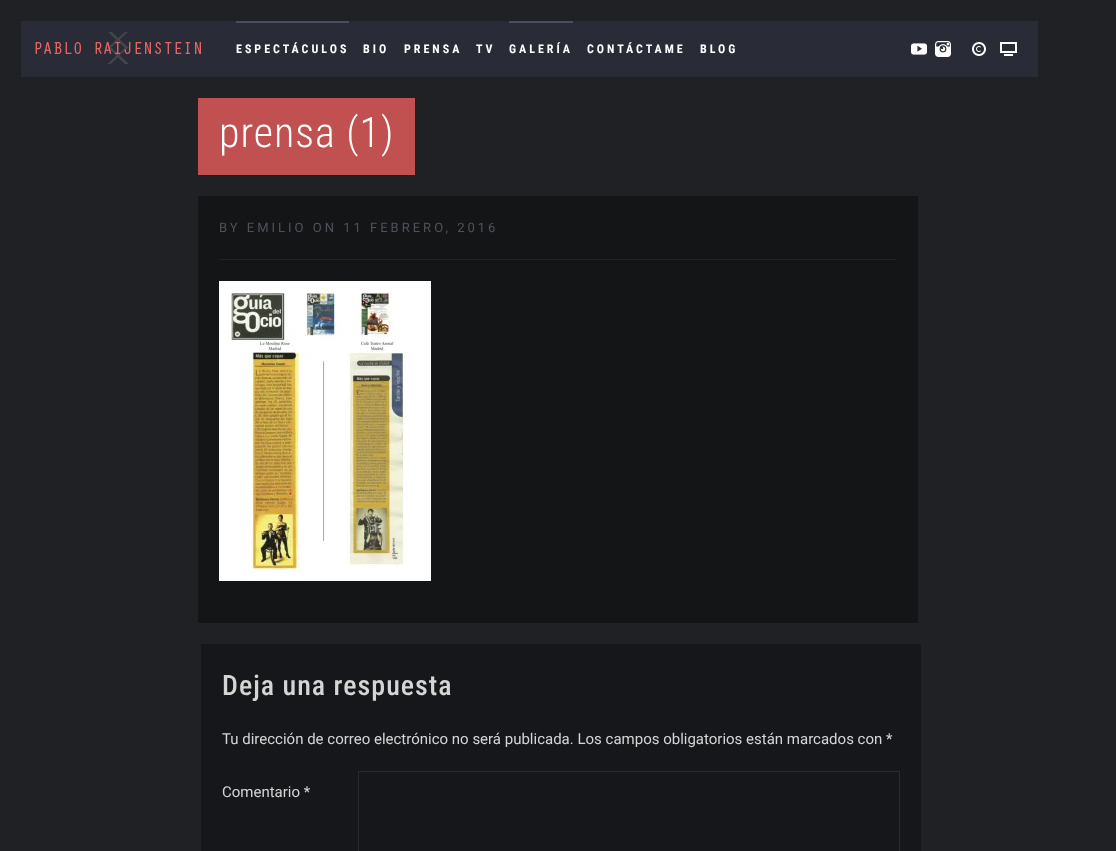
async function draw(canvas) {
  canvas.width = 1116
  canvas.height = 851
  const ctx = canvas.getContext('2d')
  ctx.miterLimit = 4
  ctx.fontKerning = 'normal'
  async function loadImage(src) {
    const img = new Image()
    img.src = src
    await img.decode()
    return img
  }

  ctx.fillStyle = '#202125'
  ctx.fillRect(0, 0, 1116, 851)
  ctx.fillStyle = '#292c36'
  ctx.fillRect(21, 21, 1017, 56)
  ctx.drawImage(await loadImage('image0.png'), 35, 32, 166, 32)
  ctx.fillStyle = '#474e64'
  ctx.fillRect(236, 21, 113, 2)
  ctx.letterSpacing = '3px'
  ctx.font = 'bold 12px Roboto Condensed'
  ctx.fillStyle = '#fff'
  ctx.fillText('ESPECTÁCULOS', 236, 53)
  ctx.fillText('BIO', 363, 53)
  ctx.fillText('PRENSA', 404, 53)
  ctx.fillText('TV', 476, 53)
  ctx.fillStyle = '#474e64'
  ctx.fillRect(509, 21, 64, 2)
  ctx.fillStyle = '#fff'
  ctx.fillText('GALERÍA', 509, 53)
  ctx.fillText('CONTÁCTAME', 587, 53)
  ctx.fillText('BLOG', 700, 53)
  ctx.drawImage(await loadImage('image1.png'), 911, 43, 16, 12)
  ctx.drawImage(await loadImage('image2.png'), 935, 41, 16, 16)
  ctx.drawImage(await loadImage('image3.png'), 972, 42, 14, 14)
  ctx.drawImage(await loadImage('image4.png'), 1000, 42, 17, 14)
  ctx.fillStyle = '#c15151'
  ctx.fillRect(198, 98, 217, 77)
  ctx.letterSpacing = '1px'
  ctx.font = '300 42px Roboto Condensed'
  ctx.fillStyle = '#fff'
  ctx.fillText('prensa (1)', 219, 147)
  ctx.fillStyle = '#141517'
  ctx.fillRect(198, 196, 720, 427)
  ctx.fillStyle = '#202125'
  ctx.fillRect(219, 259, 678, 1)
  ctx.letterSpacing = '3px'
  ctx.font = '13px Roboto'
  ctx.fillStyle = '#4f525c'
  ctx.fillText('BY EMILIO ON 11 FEBRERO, 2016', 219, 232)
  ctx.drawImage(await loadImage('image5.png'), 219, 281, 212, 300)
  ctx.fillStyle = '#16171a'
  ctx.fillRect(201, 644, 720, 207)
  ctx.letterSpacing = '1px'
  ctx.font = '500 28px Roboto Condensed'
  ctx.fillStyle = '#d4d5d5'
  ctx.fillText('Deja una respuesta', 222, 695)
  ctx.letterSpacing = '0px'
  ctx.font = '15px Roboto'
  ctx.fillText('Tu dirección de correo electrónico no será publicada. Los campos obligatorios están marcados con *', 222, 744)
  ctx.fillText('Comentario *', 222, 797)
  ctx.strokeStyle = '#292a2d'
  ctx.strokeRect(358.5, 771.5, 541, 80)
}

draw(document.querySelector('canvas'))
